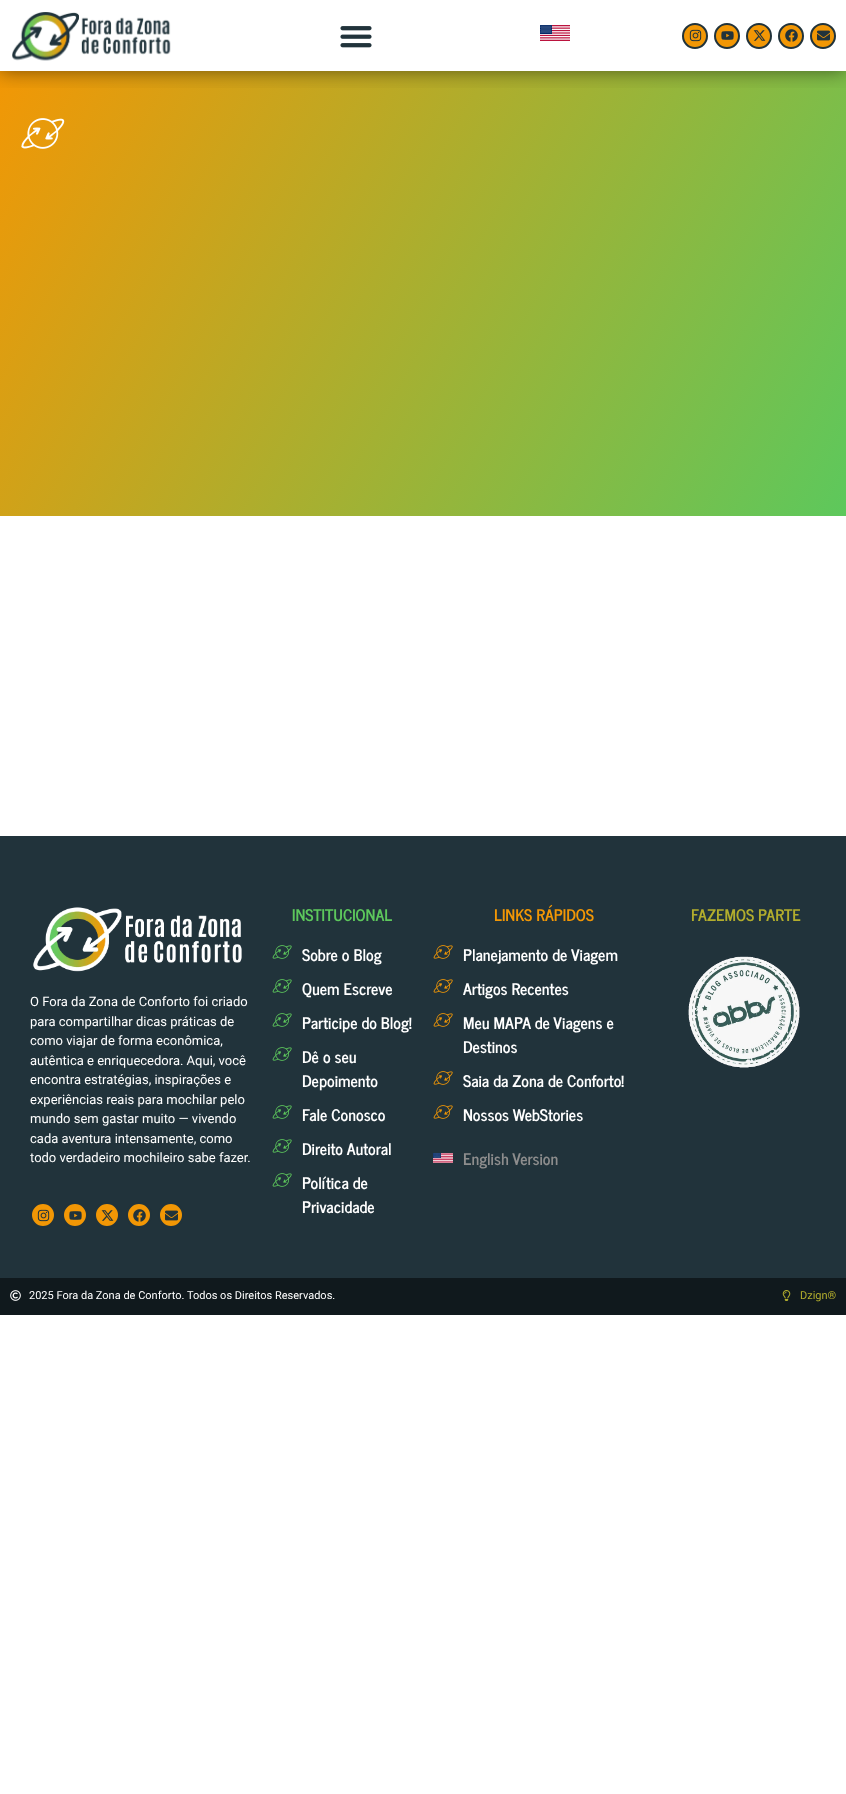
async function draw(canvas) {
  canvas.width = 846
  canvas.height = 1794
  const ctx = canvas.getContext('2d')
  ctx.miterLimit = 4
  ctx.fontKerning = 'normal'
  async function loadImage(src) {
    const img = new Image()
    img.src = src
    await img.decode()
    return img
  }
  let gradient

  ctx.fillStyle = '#fff'
  ctx.fillRect(0, 0, 846, 1794)
  gradient = ctx.createLinearGradient(841, 525, 5.1, 62)
  gradient.addColorStop(0, '#5dc85c')
  gradient.addColorStop(1, '#f29705')
  ctx.fillStyle = gradient
  ctx.fillRect(0, 71, 846, 445)
  ctx.save()
  ctx.beginPath()
  ctx.rect(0, 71, 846, 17)
  ctx.clip()
  ctx.fillStyle = '#00000080'
  ctx.filter = 'blur(9.5px)'
  ctx.beginPath()
  ctx.rect(0, 0, 846, 71)
  ctx.fill()
  ctx.filter = 'none'
  ctx.restore()
  ctx.drawImage(await loadImage('image0.png'), 12, 12, 159, 49)
  ctx.drawImage(await loadImage('image1.png'), 340, 26, 32, 22)
  ctx.drawImage(await loadImage('image2.png'), 540, 25, 30, 16)
  ctx.fillStyle = '#f29705'
  ctx.beginPath()
  ctx.arc(695, 36, 12, 0, 2 * Math.PI)
  ctx.fill()
  ctx.strokeStyle = '#21333b'
  ctx.lineWidth = 2
  ctx.stroke()
  ctx.drawImage(await loadImage('image3.png'), 689, 29, 13, 13)
  ctx.beginPath()
  ctx.arc(727, 36, 12, 0, 2 * Math.PI)
  ctx.fill()
  ctx.stroke()
  ctx.drawImage(await loadImage('image4.png'), 721, 31, 13, 9)
  ctx.beginPath()
  ctx.arc(759, 36, 12, 0, 2 * Math.PI)
  ctx.fill()
  ctx.stroke()
  ctx.drawImage(await loadImage('image5.png'), 753, 30, 13, 11)
  ctx.beginPath()
  ctx.arc(791, 36, 12, 0, 2 * Math.PI)
  ctx.fill()
  ctx.stroke()
  ctx.drawImage(await loadImage('image6.png'), 785, 29, 13, 13)
  ctx.beginPath()
  ctx.arc(823, 36, 12, 0, 2 * Math.PI)
  ctx.fill()
  ctx.stroke()
  ctx.drawImage(await loadImage('image7.png'), 817, 30, 13, 11)
  ctx.drawImage(await loadImage('image8.png'), 21, 118, 44, 31)
  ctx.fillStyle = '#21333b'
  ctx.fillRect(0, 836, 846, 442)
  ctx.font = 'bold 16px News Cycle'
  ctx.fillStyle = '#5dc85c'
  ctx.fillText('INSTITUCIONAL', 292, 921)
  ctx.drawImage(await loadImage('image9.png'), 272, 945, 20, 14)
  ctx.fillStyle = '#fff'
  ctx.fillText('Sobre o Blog', 302, 961)
  ctx.drawImage(await loadImage('image9.png'), 272, 979, 20, 14)
  ctx.fillText('Quem Escreve', 302, 995)
  ctx.drawImage(await loadImage('image9.png'), 272, 1013, 20, 14)
  ctx.fillText('Participe do Blog!', 302, 1029)
  ctx.drawImage(await loadImage('image9.png'), 272, 1047, 20, 14)
  ctx.fillText('Dê o seu', 302, 1063)
  ctx.fillText('Depoimento', 302, 1087)
  ctx.drawImage(await loadImage('image9.png'), 272, 1105, 20, 14)
  ctx.fillText('Fale Conosco', 302, 1121)
  ctx.drawImage(await loadImage('image9.png'), 272, 1139, 20, 14)
  ctx.fillText('Direito Autoral', 302, 1155)
  ctx.drawImage(await loadImage('image9.png'), 272, 1173, 20, 14)
  ctx.fillText('Política de', 302, 1189)
  ctx.fillText('Privacidade', 302, 1213)
  ctx.fillStyle = '#f29705'
  ctx.fillText('LINKS RÁPIDOS', 494, 921)
  ctx.drawImage(await loadImage('image10.png'), 433, 945, 20, 14)
  ctx.fillStyle = '#fff'
  ctx.fillText('Planejamento de Viagem', 463, 961)
  ctx.drawImage(await loadImage('image10.png'), 433, 979, 20, 14)
  ctx.fillText('Artigos Recentes', 463, 995)
  ctx.drawImage(await loadImage('image10.png'), 433, 1013, 20, 14)
  ctx.fillText('Meu MAPA de Viagens e', 463, 1029)
  ctx.fillText('Destinos', 463, 1053)
  ctx.drawImage(await loadImage('image10.png'), 433, 1071, 20, 14)
  ctx.fillText('Saia da Zona de Conforto!', 463, 1087)
  ctx.drawImage(await loadImage('image10.png'), 433, 1105, 20, 14)
  ctx.fillText('Nossos WebStories', 463, 1121)
  ctx.drawImage(await loadImage('image11.png'), 433, 1153, 20, 10)
  ctx.fillStyle = '#8d8d8d'
  ctx.fillText('English Version', 463, 1165)
  ctx.fillStyle = '#b2ad2d'
  ctx.fillText('FAZEMOS PARTE', 691, 921)
  ctx.drawImage(await loadImage('image12.png'), 688, 956, 112, 112)
  ctx.drawImage(await loadImage('image13.png'), 33, 907, 209, 65)
  ctx.font = '13px Roboto'
  ctx.fillStyle = '#fff'
  ctx.fillText('O Fora da Zona de Conforto foi criado', 30, 1006)
  ctx.fillText('para compartilhar dicas práticas de', 30, 1026)
  ctx.fillText('como viajar de forma econômica,', 30, 1045)
  ctx.fillText('autêntica e enriquecedora. Aqui, você', 30, 1065)
  ctx.fillText('encontra estratégias, inspirações e', 30, 1084)
  ctx.fillText('experiências reais para mochilar pelo', 30, 1104)
  ctx.fillText('mundo sem gastar muito — vivendo', 30, 1123)
  ctx.fillText('cada aventura intensamente, como', 30, 1143)
  ctx.fillText('todo verdadeiro mochileiro sabe fazer.', 30, 1162)
  ctx.fillStyle = '#f29705'
  ctx.beginPath()
  ctx.arc(43, 1215, 12, 0, 2 * Math.PI)
  ctx.fill()
  ctx.stroke()
  ctx.drawImage(await loadImage('image3.png'), 37, 1209, 13, 13)
  ctx.beginPath()
  ctx.arc(75, 1215, 12, 0, 2 * Math.PI)
  ctx.fill()
  ctx.stroke()
  ctx.drawImage(await loadImage('image4.png'), 69, 1211, 13, 9)
  ctx.beginPath()
  ctx.arc(107, 1215, 12, 0, 2 * Math.PI)
  ctx.fill()
  ctx.stroke()
  ctx.drawImage(await loadImage('image5.png'), 101, 1210, 13, 11)
  ctx.beginPath()
  ctx.arc(139, 1215, 12, 0, 2 * Math.PI)
  ctx.fill()
  ctx.stroke()
  ctx.drawImage(await loadImage('image6.png'), 133, 1209, 13, 13)
  ctx.beginPath()
  ctx.arc(171, 1215, 12, 0, 2 * Math.PI)
  ctx.fill()
  ctx.stroke()
  ctx.drawImage(await loadImage('image7.png'), 165, 1210, 13, 11)
  ctx.fillStyle = '#10191d'
  ctx.fillRect(0, 1278, 846, 37)
  ctx.drawImage(await loadImage('image14.png'), 10, 1290, 11, 11)
  ctx.font = '11px Roboto'
  ctx.fillStyle = '#fff'
  ctx.fillText('2025 Fora da Zona de Conforto. Todos os Direitos Reservados.', 29, 1299)
  ctx.drawImage(await loadImage('image15.png'), 782, 1290, 9, 11)
  ctx.fillStyle = '#b2ad2d'
  ctx.fillText('Dzign®', 800, 1299)
}

draw(document.querySelector('canvas'))
